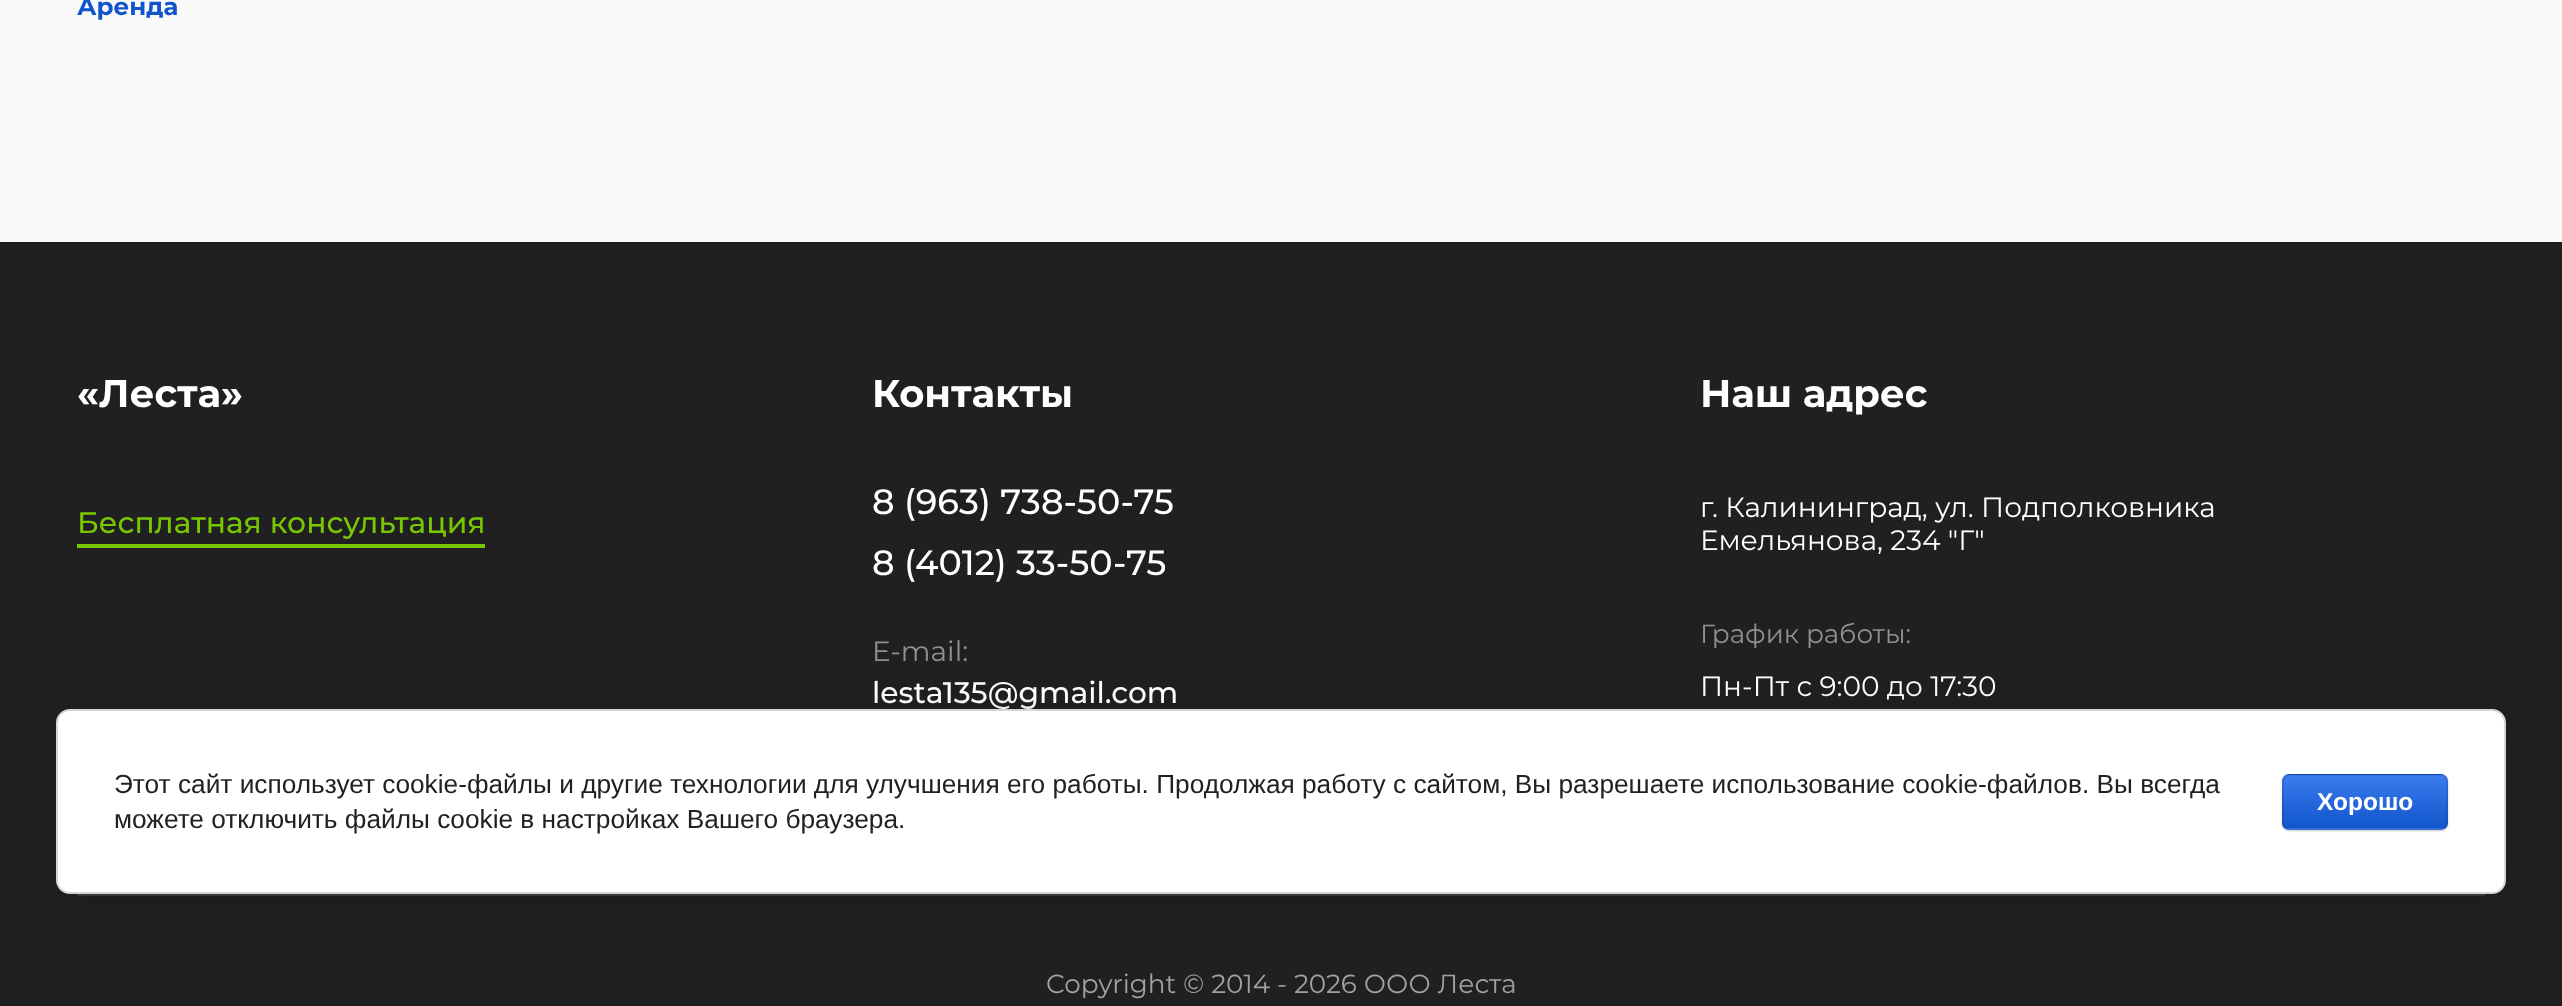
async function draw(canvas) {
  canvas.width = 2562
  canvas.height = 1006
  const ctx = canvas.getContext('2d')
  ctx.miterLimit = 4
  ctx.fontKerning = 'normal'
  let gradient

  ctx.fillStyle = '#fafafa'
  ctx.fillRect(0, 0, 2562, 1006)
  ctx.font = 'bold 24.5px Montserrat'
  ctx.fillStyle = '#15c'
  ctx.fillText('Аренда', 77, 15)
  ctx.fillStyle = '#202022'
  ctx.fillRect(0, 242, 2562, 764)
  ctx.fillStyle = '#3b3b3c'
  ctx.fillRect(77, 894, 2408, 2)
  ctx.font = 'bold 38.5px Montserrat'
  ctx.fillStyle = '#fffffe'
  ctx.fillText('«Леста»', 77, 407)
  ctx.font = '500 29.75px Montserrat'
  ctx.fillStyle = '#79c700'
  ctx.fillText('Бесплатная консультация', 77, 533)
  ctx.fillRect(77, 544, 408, 4)
  ctx.font = 'bold 38.5px Montserrat'
  ctx.fillStyle = '#fffffe'
  ctx.fillText('Контакты', 872, 407)
  ctx.font = '500 35px Montserrat'
  ctx.fillText('8 (963) 738-50-75', 872, 514)
  ctx.fillText('8 (4012) 33-50-75', 872, 575)
  ctx.font = '28px Montserrat'
  ctx.fillStyle = '#909090'
  ctx.fillText('E-mail:', 872, 661)
  ctx.font = '500 29.75px Montserrat'
  ctx.fillStyle = '#fffffe'
  ctx.fillText('lesta135@gmail.com', 872, 703)
  ctx.font = 'bold 38.5px Montserrat'
  ctx.fillText('Наш адрес', 1700, 407)
  ctx.font = '28px Montserrat'
  ctx.fillText('г. Калининград, ул. Подполковника', 1700, 517)
  ctx.fillText('Емельянова, 234 "Г"', 1700, 550)
  ctx.font = '26.25px Montserrat'
  ctx.fillStyle = '#909090'
  ctx.fillText('График работы:', 1700, 643)
  ctx.font = '28px Montserrat'
  ctx.fillStyle = '#fffffe'
  ctx.fillText('Пн-Пт с 9:00 до 17:30', 1700, 696)
  ctx.font = '26.25px Montserrat'
  ctx.fillStyle = '#a1a1a2'
  ctx.fillText('Copyright © 2014 - 2026 ООО Леста', 1046, 993)
  ctx.fillStyle = '#00000024'
  ctx.filter = 'blur(16px)'
  ctx.beginPath()
  ctx.roundRect(60, 712, 2450, 186, 14)
  ctx.fill()
  ctx.filter = 'none'
  ctx.fillStyle = '#fff'
  ctx.beginPath()
  ctx.roundRect(57, 710, 2448, 183, 13)
  ctx.fill()
  ctx.strokeStyle = '#d6d6d6'
  ctx.lineWidth = 2
  ctx.stroke()
  ctx.font = '26.25px Liberation Sans'
  ctx.fillStyle = '#212121'
  ctx.fillText('Этот сайт использует cookie-файлы и другие технологии для улучшения его работы. Продолжая работу с сайтом, Вы разрешаете использование cookie-файлов. Вы всегда', 114, 793)
  ctx.fillText('можете отключить файлы cookie в настройках Вашего браузера.', 114, 828)
  ctx.fillStyle = '#00000033'
  ctx.filter = 'blur(1px)'
  ctx.beginPath()
  ctx.roundRect(2282, 775, 166, 56, 7)
  ctx.fill()
  ctx.filter = 'none'
  ctx.save()
  ctx.beginPath()
  ctx.roundRect(2282, 774, 166, 56, 7)
  ctx.clip()
  gradient = ctx.createLinearGradient(2365, 723, 2365, 775)
  gradient.addColorStop(0, '#3b7cef')
  gradient.addColorStop(1, '#15c')
  ctx.fillStyle = gradient
  ctx.fillRect(2282, 774, 166, 1)
  gradient = ctx.createLinearGradient(2365, 775, 2365, 828)
  gradient.addColorStop(0, '#3b7cef')
  gradient.addColorStop(1, '#15c')
  ctx.fillStyle = gradient
  ctx.fillRect(2282, 775, 166, 53)
  gradient = ctx.createLinearGradient(2365, 828, 2365, 880)
  gradient.addColorStop(0, '#3b7cef')
  gradient.addColorStop(1, '#15c')
  ctx.fillStyle = gradient
  ctx.fillRect(2282, 828, 166, 2)
  ctx.restore()
  ctx.beginPath()
  ctx.roundRect(2283, 775, 164, 54, 6)
  ctx.strokeStyle = '#0000001a'
  ctx.stroke()
  ctx.font = 'bold 24.5px Liberation Sans'
  ctx.fillStyle = '#fffffe'
  ctx.fillText('Хорошо', 2317, 810)
}

draw(document.querySelector('canvas'))
